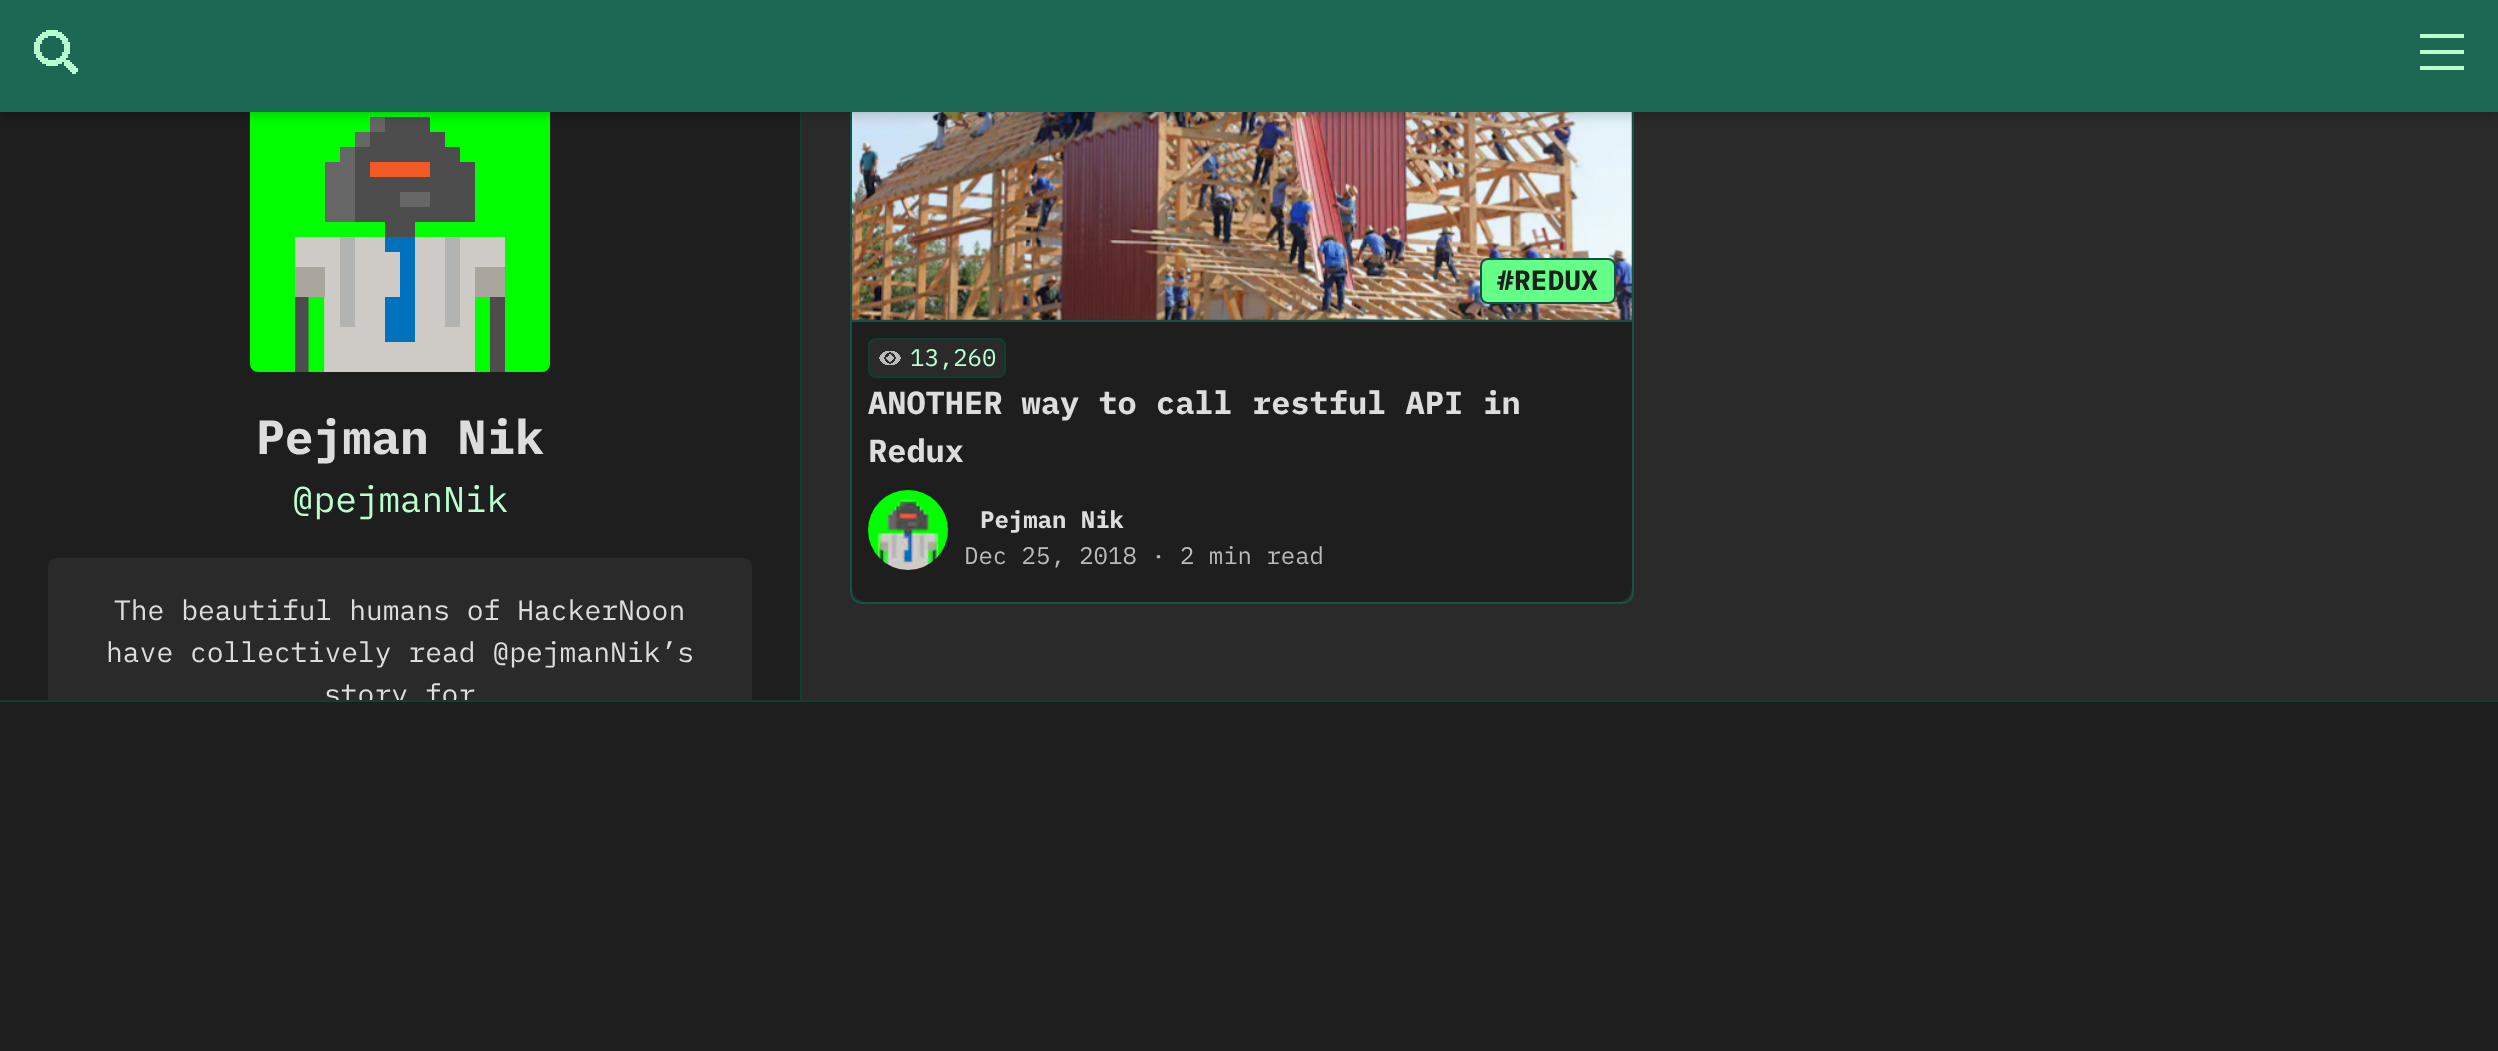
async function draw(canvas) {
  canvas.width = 2498
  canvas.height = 1051
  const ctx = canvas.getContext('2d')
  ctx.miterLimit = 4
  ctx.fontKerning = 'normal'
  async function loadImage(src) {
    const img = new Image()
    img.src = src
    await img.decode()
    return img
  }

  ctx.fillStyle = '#1e1e1e'
  ctx.fillRect(0, 0, 2498, 1051)
  ctx.drawImage(await loadImage('image1.png'), 250, 112, 300, 260)
  ctx.fillStyle = '#2a2a2a'
  ctx.fillRect(802, 112, 1696, 588)
  ctx.fillStyle = '#0e3f32'
  ctx.fillRect(800, 112, 2, 588)
  ctx.beginPath()
  ctx.roundRect(851, -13, 782, 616, 11)
  ctx.strokeStyle = '#155144'
  ctx.lineWidth = 2
  ctx.stroke()
  ctx.drawImage(await loadImage('image2.png'), 852, 112, 780, 208)
  ctx.fillStyle = '#0000001a'
  ctx.filter = 'blur(4px)'
  ctx.beginPath()
  ctx.rect(4, 8, 2490, 104)
  ctx.fill()
  ctx.filter = 'none'
  ctx.filter = 'blur(6px)'
  ctx.beginPath()
  ctx.rect(2, 10, 2494, 108)
  ctx.fill()
  ctx.filter = 'none'
  ctx.fillStyle = '#1d6854'
  ctx.fillRect(0, 0, 2498, 112)
  ctx.drawImage(await loadImage('image0.png'), 34, 30, 44, 44)
  ctx.fillStyle = '#b8ffcf'
  ctx.beginPath()
  ctx.moveTo(2420, 50)
  ctx.lineTo(2464, 50)
  ctx.lineTo(2464, 54)
  ctx.lineTo(2420, 54)
  ctx.closePath()
  ctx.moveTo(2420, 66)
  ctx.lineTo(2464, 66)
  ctx.lineTo(2464, 70)
  ctx.lineTo(2420, 70)
  ctx.closePath()
  ctx.moveTo(2420, 34)
  ctx.lineTo(2464, 34)
  ctx.lineTo(2464, 38)
  ctx.lineTo(2420, 38)
  ctx.closePath()
  ctx.fill()
  ctx.fillStyle = '#0e3f32'
  ctx.fillRect(0, 700, 2498, 2)
  ctx.font = 'bold 48px IBM Plex Mono'
  ctx.fillStyle = '#ddd'
  ctx.fillText('Pejman Nik', 256, 454)
  ctx.font = '36px IBM Plex Mono'
  ctx.fillStyle = '#b9ffd0'
  ctx.fillText('@pejmanNik', 292, 512)
  ctx.fillStyle = '#2a2a2a'
  ctx.beginPath()
  ctx.roundRect(48, 558, 704, 142, [8, 8, 0, 0])
  ctx.fill()
  ctx.font = '28px IBM Plex Mono'
  ctx.fillStyle = '#ddd'
  ctx.fillText('The beautiful humans of HackerNoon', 114, 620)
  ctx.fillText('have collectively read @pejmanNik’s', 106, 662)
  ctx.save()
  ctx.beginPath()
  ctx.rect(0, 8, 800, 692)
  ctx.clip()
  ctx.fillText('story for', 324, 704)
  ctx.restore()
  ctx.fillStyle = '#63ff86'
  ctx.beginPath()
  ctx.roundRect(1481, 259, 134, 44, 7)
  ctx.fill()
  ctx.stroke()
  ctx.font = 'bold 28px IBM Plex Mono'
  ctx.fillStyle = '#1e1e1e'
  ctx.fillText('#REDUX', 1497, 290)
  ctx.beginPath()
  ctx.roundRect(852, 322, 780, 280, [0, 0, 16, 16])
  ctx.fill()
  ctx.fillStyle = '#155144'
  ctx.fillRect(852, 320, 780, 2)
  ctx.fillStyle = '#2a2a2a'
  ctx.beginPath()
  ctx.roundRect(869, 339, 136, 38, 7)
  ctx.fill()
  ctx.strokeStyle = '#0e3f32'
  ctx.stroke()
  ctx.drawImage(await loadImage('image3.png'), 879, 351, 22, 14)
  ctx.font = '24px IBM Plex Mono'
  ctx.fillStyle = '#b9ffd0'
  ctx.fillText('13,260', 910, 366)
  ctx.font = 'bold 32px IBM Plex Mono'
  ctx.fillStyle = '#ddd'
  ctx.fillText('ANOTHER way to call restful API in', 868, 414)
  ctx.fillText('Redux', 868, 462)
  ctx.drawImage(await loadImage('image4.png'), 868, 490, 80, 80)
  ctx.font = 'bold 24px IBM Plex Mono'
  ctx.fillText('Pejman Nik', 980, 528)
  ctx.font = '24px IBM Plex Mono'
  ctx.fillStyle = '#bbb'
  ctx.fillText('Dec 25, 2018 · 2 min read', 964, 564)
}

draw(document.querySelector('canvas'))
